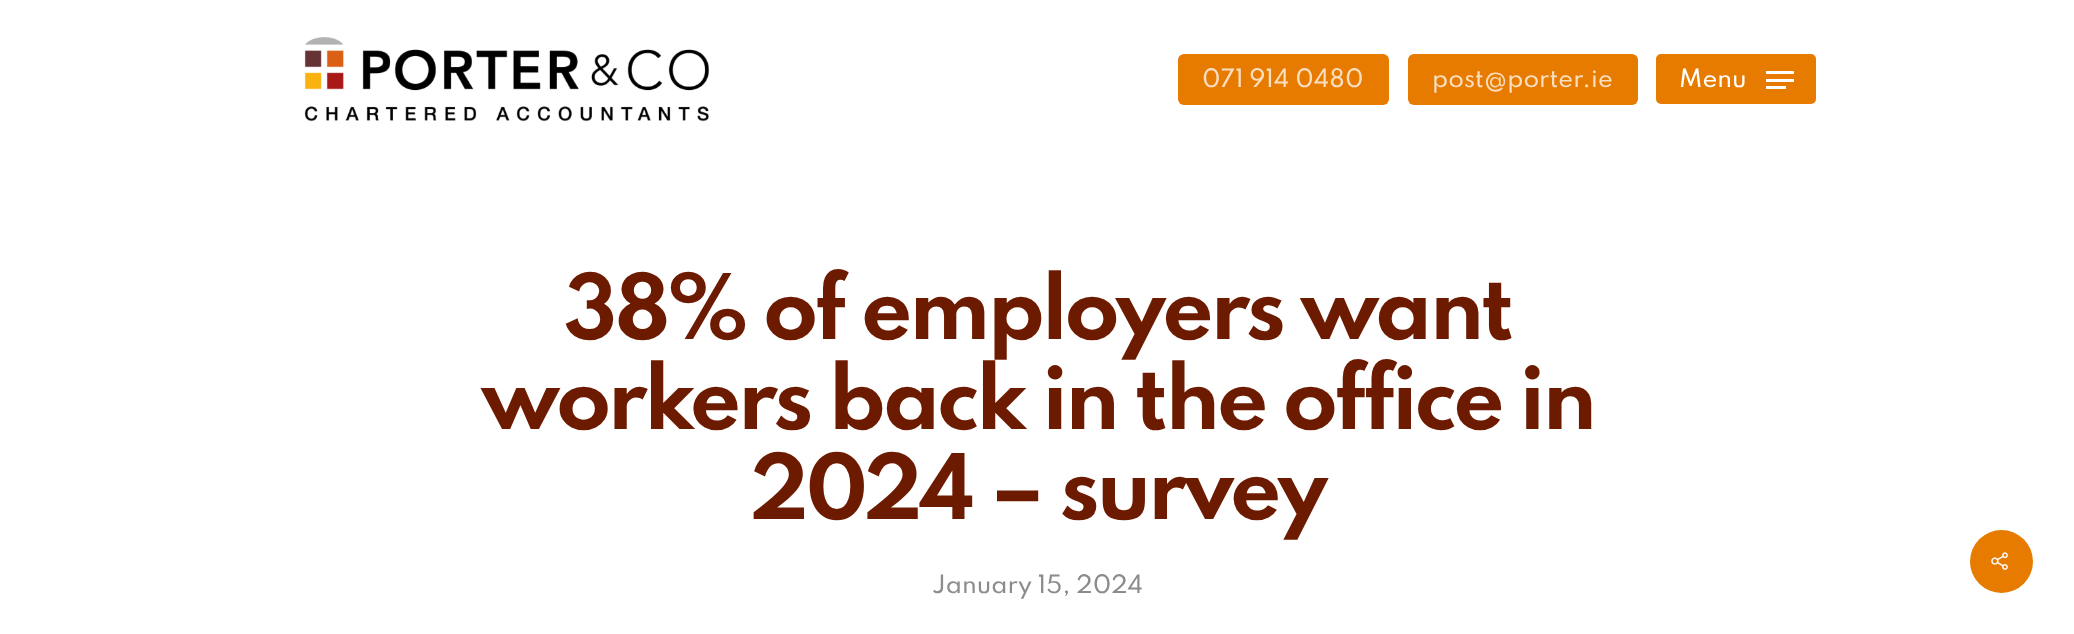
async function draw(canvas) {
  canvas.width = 2074
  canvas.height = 634
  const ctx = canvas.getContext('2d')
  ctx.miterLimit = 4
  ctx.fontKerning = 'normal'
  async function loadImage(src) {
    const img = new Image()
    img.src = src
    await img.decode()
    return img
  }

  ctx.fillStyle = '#fff'
  ctx.fillRect(0, 0, 2074, 634)
  ctx.drawImage(await loadImage('image0.png'), 304, 37, 405, 85)
  ctx.fillStyle = '#e77b00'
  ctx.beginPath()
  ctx.roundRect(1178, 54, 211, 51, 6)
  ctx.fill()
  ctx.font = '500 22.5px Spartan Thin'
  ctx.fillStyle = '#f9debf'
  ctx.fillText('071 914 0480', 1202, 87)
  ctx.fillStyle = '#e77b00'
  ctx.beginPath()
  ctx.roundRect(1408, 54, 230, 51, 6)
  ctx.fill()
  ctx.fillStyle = '#f9debf'
  ctx.fillText('post@porter.ie', 1432, 87)
  ctx.fillStyle = '#e77b00'
  ctx.beginPath()
  ctx.roundRect(1656, 54, 160, 50, 5)
  ctx.fill()
  ctx.fillStyle = '#fff'
  ctx.fillText('Menu', 1679, 87)
  ctx.fillRect(1766, 71, 28, 3)
  ctx.fillRect(1766, 86, 20, 3)
  ctx.fillRect(1766, 79, 28, 3)
  ctx.letterSpacing = '-3.75px'
  ctx.font = 'bold 80px Spartan Thin'
  ctx.fillStyle = '#6d1b00'
  ctx.fillText('38% of employers want', 564, 339)
  ctx.fillText('workers back in the office in', 481, 429)
  ctx.fillText('2024 – survey', 751, 519)
  ctx.letterSpacing = '0px'
  ctx.font = '500 22.5px Spartan Thin'
  ctx.fillStyle = '#8c8c8c'
  ctx.fillText('January 15, 2024', 932, 593)
  ctx.fillStyle = '#e77b00'
  ctx.beginPath()
  ctx.arc(2001.5, 561.5, 31.5, 0, 2 * Math.PI)
  ctx.fill()
  ctx.drawImage(await loadImage('image1.png'), 1991, 552, 17, 18)
}

draw(document.querySelector('canvas'))
